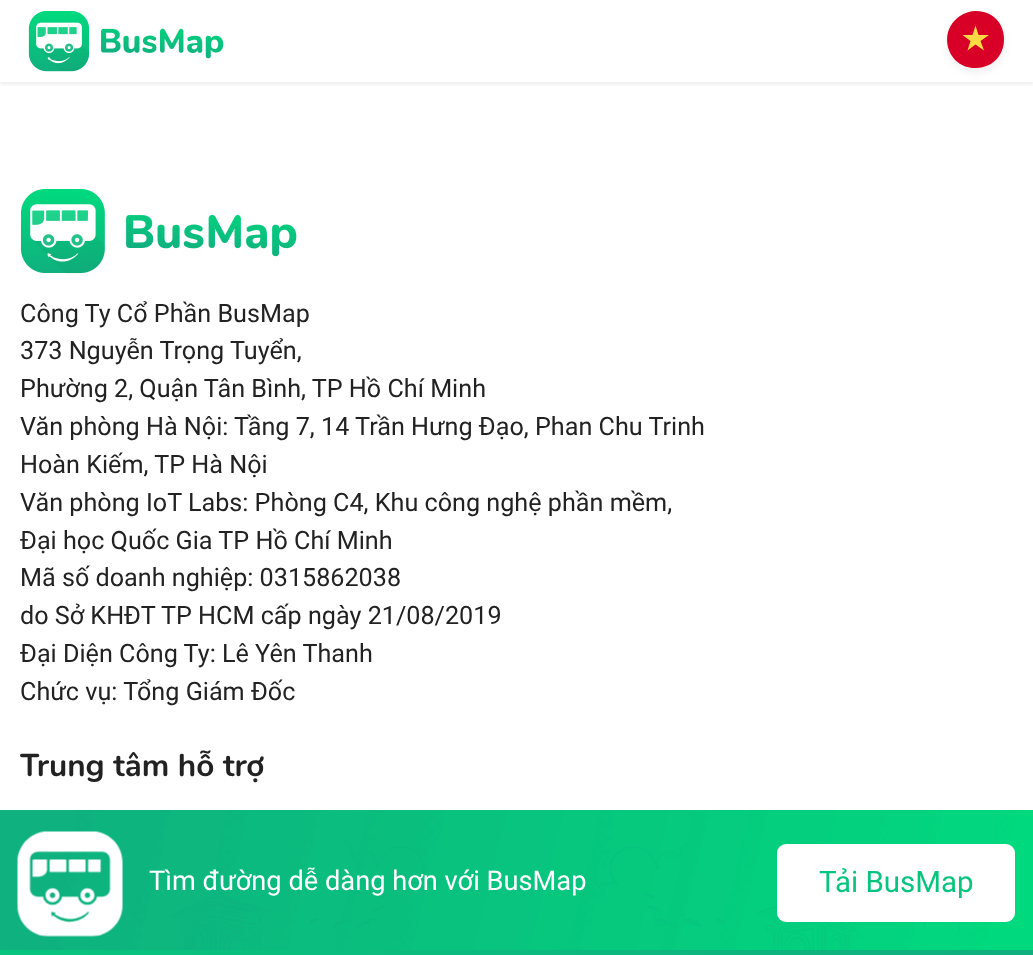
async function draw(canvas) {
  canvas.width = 1033
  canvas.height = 955
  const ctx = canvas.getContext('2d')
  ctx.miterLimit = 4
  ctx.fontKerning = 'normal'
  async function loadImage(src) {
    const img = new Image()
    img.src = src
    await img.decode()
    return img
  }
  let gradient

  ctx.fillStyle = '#fff'
  ctx.fillRect(0, 0, 1033, 955)
  ctx.save()
  ctx.beginPath()
  ctx.rect(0, 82, 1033, 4)
  ctx.clip()
  ctx.fillStyle = '#3232321a'
  ctx.filter = 'blur(2px)'
  ctx.beginPath()
  ctx.rect(0, 2, 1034, 82)
  ctx.fill()
  ctx.filter = 'none'
  ctx.restore()
  ctx.drawImage(await loadImage('image0.png'), 28, 11, 196, 61)
  ctx.fillStyle = '#00000012'
  ctx.filter = 'blur(4.5px)'
  ctx.beginPath()
  ctx.roundRect(947, 14, 58, 58, 29)
  ctx.fill()
  ctx.filter = 'none'
  ctx.fillStyle = '#d80027'
  ctx.beginPath()
  ctx.moveTo(976, 11)
  ctx.bezierCurveTo(1013, 11, 1014, 67, 976, 68)
  ctx.bezierCurveTo(948, 69, 936, 32, 960, 16)
  ctx.bezierCurveTo(964, 13, 970, 11, 976, 11)
  ctx.closePath()
  ctx.fill()
  ctx.fillStyle = '#ffda44'
  ctx.beginPath()
  ctx.moveTo(975.5, 25.5)
  ctx.lineTo(978.5, 35)
  ctx.lineTo(989, 35)
  ctx.lineTo(980.5, 41)
  ctx.lineTo(984, 50.5)
  ctx.lineTo(975.5, 44.5)
  ctx.lineTo(967.5, 50.5)
  ctx.lineTo(970.5, 41)
  ctx.lineTo(962.5, 35)
  ctx.lineTo(972.5, 35)
  ctx.closePath()
  ctx.fill()
  ctx.drawImage(await loadImage('image1.png'), 20, 189, 277, 85)
  ctx.font = '25.2px Roboto'
  ctx.fillStyle = '#222'
  ctx.fillText('Công Ty Cổ Phần BusMap', 20, 322)
  ctx.fillText('373 Nguyễn Trọng Tuyển,', 20, 359)
  ctx.fillText('Phường 2, Quận Tân Bình, TP Hồ Chí Minh', 20, 397)
  ctx.fillText('Văn phòng Hà Nội: Tầng 7, 14 Trần Hưng Đạo, Phan Chu Trinh', 20, 435)
  ctx.fillText('Hoàn Kiếm, TP Hà Nội', 20, 473)
  ctx.fillText('Văn phòng IoT Labs: Phòng C4, Khu công nghệ phần mềm,', 20, 511)
  ctx.fillText('Đại học Quốc Gia TP Hồ Chí Minh', 20, 549)
  ctx.fillText('Mã số doanh nghiệp: 0315862038', 20, 586)
  ctx.fillText('do Sở KHĐT TP HCM cấp ngày 21/08/2019', 20, 624)
  ctx.fillText('Đại Diện Công Ty: Lê Yên Thanh', 20, 662)
  ctx.fillText('Chức vụ: Tổng Giám Đốc', 20, 700)
  ctx.font = 'bold 31.5px Nunito'
  ctx.fillText('Trung tâm hỗ trợ', 20, 776)
  ctx.drawImage(await loadImage('image2.png'), 0, 810, 1033, 140)
  ctx.drawImage(await loadImage('image3.png'), 17, 831, 106, 106)
  ctx.font = '27.25px Roboto'
  ctx.fillStyle = '#fff'
  ctx.fillText('Tìm đường dễ dàng hơn với BusMap', 149, 890)
  ctx.beginPath()
  ctx.roundRect(777, 844, 238, 78, 9)
  ctx.fill()
  ctx.font = '29.5px Roboto'
  ctx.fillStyle = '#08c47e'
  ctx.fillText('Tải BusMap', 819, 892)
  gradient = ctx.createLinearGradient(0, 953, 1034, 953)
  gradient.addColorStop(0, '#08c47e')
  gradient.addColorStop(1, '#10af7e')
  ctx.fillStyle = gradient
  ctx.fillRect(0, 950, 1033, 5)
}

draw(document.querySelector('canvas'))
